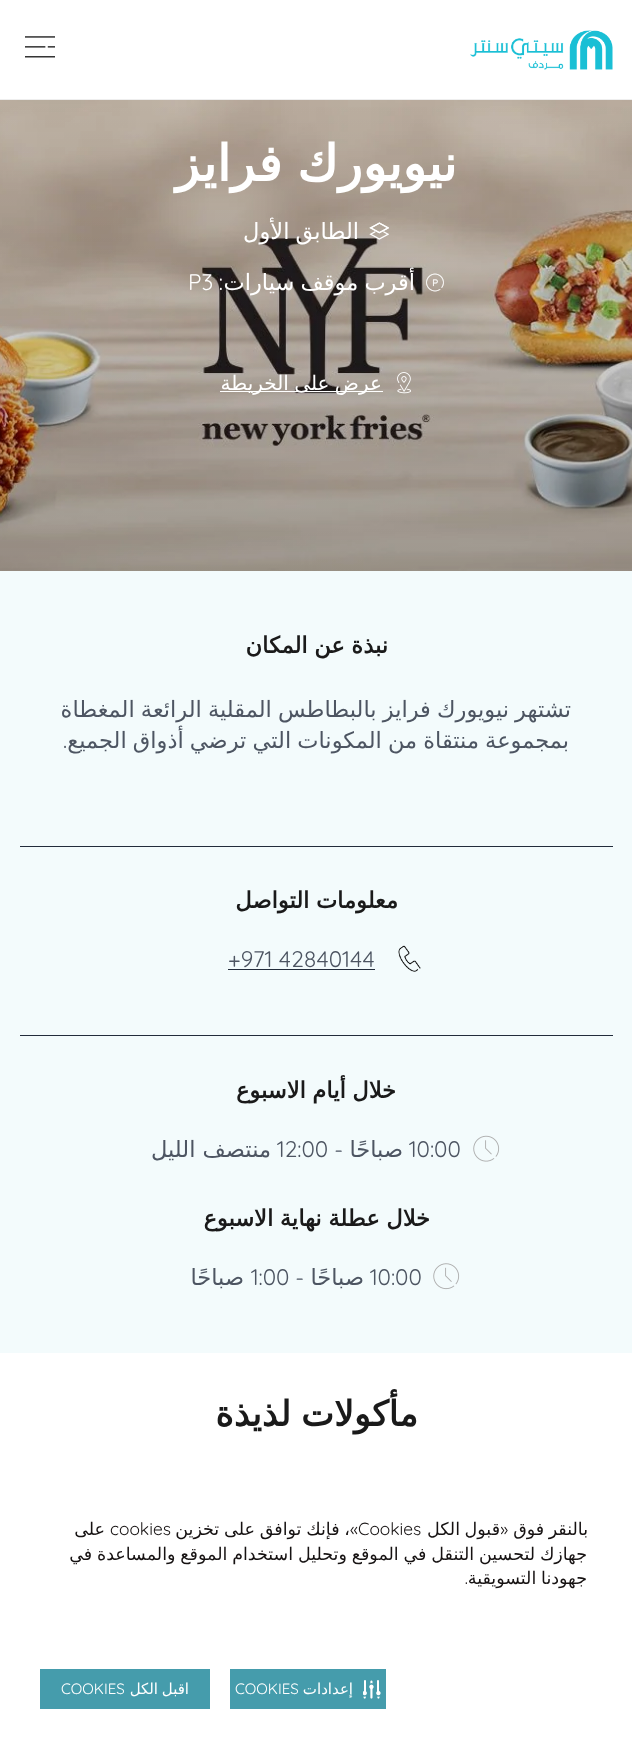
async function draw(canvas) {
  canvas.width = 632
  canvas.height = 1748
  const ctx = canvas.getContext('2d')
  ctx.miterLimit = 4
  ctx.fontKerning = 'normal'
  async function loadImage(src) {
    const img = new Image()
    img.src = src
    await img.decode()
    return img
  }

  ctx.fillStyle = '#fff'
  ctx.fillRect(0, 0, 632, 1748)
  ctx.fillStyle = '#eee'
  ctx.fillRect(0, 99, 632, 1)
  ctx.drawImage(await loadImage('image0.png'), 470, 30, 143, 40)
  ctx.drawImage(await loadImage('image1.png'), 25, 36, 30, 22)
  ctx.drawImage(await loadImage('image2.png'), 0, 100, 632, 471)
  ctx.wordSpacing = '-1px'
  ctx.direction = 'rtl'
  ctx.font = 'bold 50px DejaVu Sans'
  ctx.fillStyle = '#fff'
  ctx.fillText('نيويورك فرايز', 457, 181)
  ctx.drawImage(await loadImage('image3.png'), 369, 222, 20, 18)
  ctx.font = '22.5px DejaVu Sans'
  ctx.fillText('الطابق الأول', 359, 239)
  ctx.drawImage(await loadImage('image4.png'), 426, 273, 18, 19)
  ctx.fillText('أقرب موقف سيارات', 415, 290)
  ctx.wordSpacing = '0px'
  ctx.font = '22.5px Quicksand'
  ctx.fillText(':', 223, 290)
  ctx.direction = 'ltr'
  ctx.fillText('P3', 188, 290)
  ctx.drawImage(await loadImage('image5.png'), 397, 372, 14, 22)
  ctx.fillRect(220, 391, 163, 1)
  ctx.wordSpacing = '-1px'
  ctx.direction = 'rtl'
  ctx.font = '20px DejaVu Sans'
  ctx.fillText('عرض على الخريطة', 382, 390)
  ctx.fillStyle = '#f3fbfc'
  ctx.fillRect(0, 571, 632, 782)
  ctx.fillStyle = '#222c3b'
  ctx.fillRect(20, 846, 593, 1)
  ctx.wordSpacing = '-0.5px'
  ctx.font = 'bold 22.5px DejaVu Sans'
  ctx.fillStyle = '#1a1a1a'
  ctx.fillText('نبذة عن المكان', 388, 653)
  ctx.wordSpacing = '-1px'
  ctx.font = '22.5px DejaVu Sans'
  ctx.fillStyle = '#4d5562'
  ctx.fillText('تشتهر نيويورك فرايز بالبطاطس المقلية الرائعة المغطاة', 571, 717)
  ctx.fillText('بمجموعة منتقاة من المكونات التي ترضي أذواق الجميع', 569, 748)
  ctx.wordSpacing = '0px'
  ctx.font = '22.5px Quicksand'
  ctx.fillText('.', 67, 748)
  ctx.fillStyle = '#222c3b'
  ctx.fillRect(20, 1035, 593, 1)
  ctx.wordSpacing = '-0.5px'
  ctx.font = 'bold 22.5px DejaVu Sans'
  ctx.fillStyle = '#1a1a1a'
  ctx.fillText('معلومات التواصل', 398, 908)
  ctx.drawImage(await loadImage('image6.png'), 398, 945, 23, 27)
  ctx.wordSpacing = '0px'
  ctx.direction = 'ltr'
  ctx.font = '22.5px Quicksand'
  ctx.fillStyle = '#4d5562'
  ctx.fillText('+971 42840144', 228, 967)
  ctx.fillStyle = '#222c3b'
  ctx.fillRect(228, 969, 147, 1)
  ctx.wordSpacing = '-0.5px'
  ctx.direction = 'rtl'
  ctx.font = 'bold 22.5px DejaVu Sans'
  ctx.fillStyle = '#1a1a1a'
  ctx.fillText('خلال أيام الاسبوع', 396, 1098)
  ctx.drawImage(await loadImage('image7.png'), 473, 1135, 27, 27)
  ctx.wordSpacing = '0px'
  ctx.direction = 'ltr'
  ctx.font = '22.5px Quicksand'
  ctx.fillStyle = '#4d5562'
  ctx.fillText('10:00', 409, 1157)
  ctx.direction = 'rtl'
  ctx.font = '22.5px DejaVu Sans'
  ctx.fillText('صباحًا', 403, 1157)
  ctx.font = '22.5px Quicksand'
  ctx.fillText('-', 343, 1157)
  ctx.direction = 'ltr'
  ctx.fillText('12:00', 277, 1157)
  ctx.direction = 'rtl'
  ctx.font = '22.5px DejaVu Sans'
  ctx.fillText('منتصف الليل', 271, 1157)
  ctx.wordSpacing = '-0.5px'
  ctx.font = 'bold 22.5px DejaVu Sans'
  ctx.fillStyle = '#1a1a1a'
  ctx.fillText('خلال عطلة نهاية الاسبوع', 430, 1226)
  ctx.drawImage(await loadImage('image8.png'), 433, 1263, 27, 27)
  ctx.wordSpacing = '0px'
  ctx.direction = 'ltr'
  ctx.font = '22.5px Quicksand'
  ctx.fillStyle = '#4d5562'
  ctx.fillText('10:00', 370, 1285)
  ctx.direction = 'rtl'
  ctx.font = '22.5px DejaVu Sans'
  ctx.fillText('صباحًا', 364, 1285)
  ctx.font = '22.5px Quicksand'
  ctx.fillText('-', 304, 1285)
  ctx.direction = 'ltr'
  ctx.fillText('1:00', 251, 1285)
  ctx.direction = 'rtl'
  ctx.font = '22.5px DejaVu Sans'
  ctx.fillText('صباحًا', 244, 1285)
  ctx.wordSpacing = '-1px'
  ctx.font = 'bold 35px DejaVu Sans'
  ctx.fillStyle = '#1a1a1a'
  ctx.fillText('مأكولات لذيذة', 418, 1426)
  ctx.font = '17.5px DejaVu Sans'
  ctx.fillStyle = '#161212'
  ctx.fillText('بالنقر فوق', 588, 1535)
  ctx.wordSpacing = '0px'
  ctx.font = '17.5px Quicksand'
  ctx.fillText('«', 508, 1535)
  ctx.wordSpacing = '-1px'
  ctx.font = '17.5px DejaVu Sans'
  ctx.fillText('قبول الكل', 500, 1535)
  ctx.wordSpacing = '0px'
  ctx.direction = 'ltr'
  ctx.font = '17.5px Quicksand'
  ctx.fillText('Cookies', 358, 1535)
  ctx.wordSpacing = '-0.75px'
  ctx.direction = 'rtl'
  ctx.font = '17.5px DejaVu Sans'
  ctx.fillText('، فإنك توافق على تخزين', 350, 1535)
  ctx.wordSpacing = '0px'
  ctx.font = '17.5px Quicksand'
  ctx.fillText('»', 358, 1535)
  ctx.direction = 'ltr'
  ctx.fillText('cookies', 110, 1535)
  ctx.direction = 'rtl'
  ctx.font = '17.5px DejaVu Sans'
  ctx.fillText('على', 105, 1535)
  ctx.wordSpacing = '-0.75px'
  ctx.fillText('جهازك لتحسين التنقل في الموقع وتحليل استخدام الموقع والمساعدة في', 587, 1560)
  ctx.fillText('جهودنا التسويقية', 587, 1584)
  ctx.wordSpacing = '0px'
  ctx.font = '17.5px Quicksand'
  ctx.fillText('.', 468, 1584)
  ctx.fillStyle = '#459cac'
  ctx.fillRect(230, 1669, 156, 40)
  ctx.drawImage(await loadImage('image9.png'), 363, 1680, 18, 19)
  ctx.font = '15px DejaVu Sans'
  ctx.fillStyle = '#fff'
  ctx.fillText('إعدادات', 353, 1694)
  ctx.direction = 'ltr'
  ctx.font = '15px Quicksand'
  ctx.fillText('COOKIES', 235, 1694)
  ctx.fillStyle = '#459cac'
  ctx.fillRect(40, 1669, 170, 40)
  ctx.wordSpacing = '-1px'
  ctx.direction = 'rtl'
  ctx.font = '15px DejaVu Sans'
  ctx.fillStyle = '#fff'
  ctx.fillText('اقبل الكل', 189, 1694)
  ctx.wordSpacing = '0px'
  ctx.direction = 'ltr'
  ctx.font = '15px Quicksand'
  ctx.fillText('COOKIES', 61, 1694)
}

draw(document.querySelector('canvas'))
